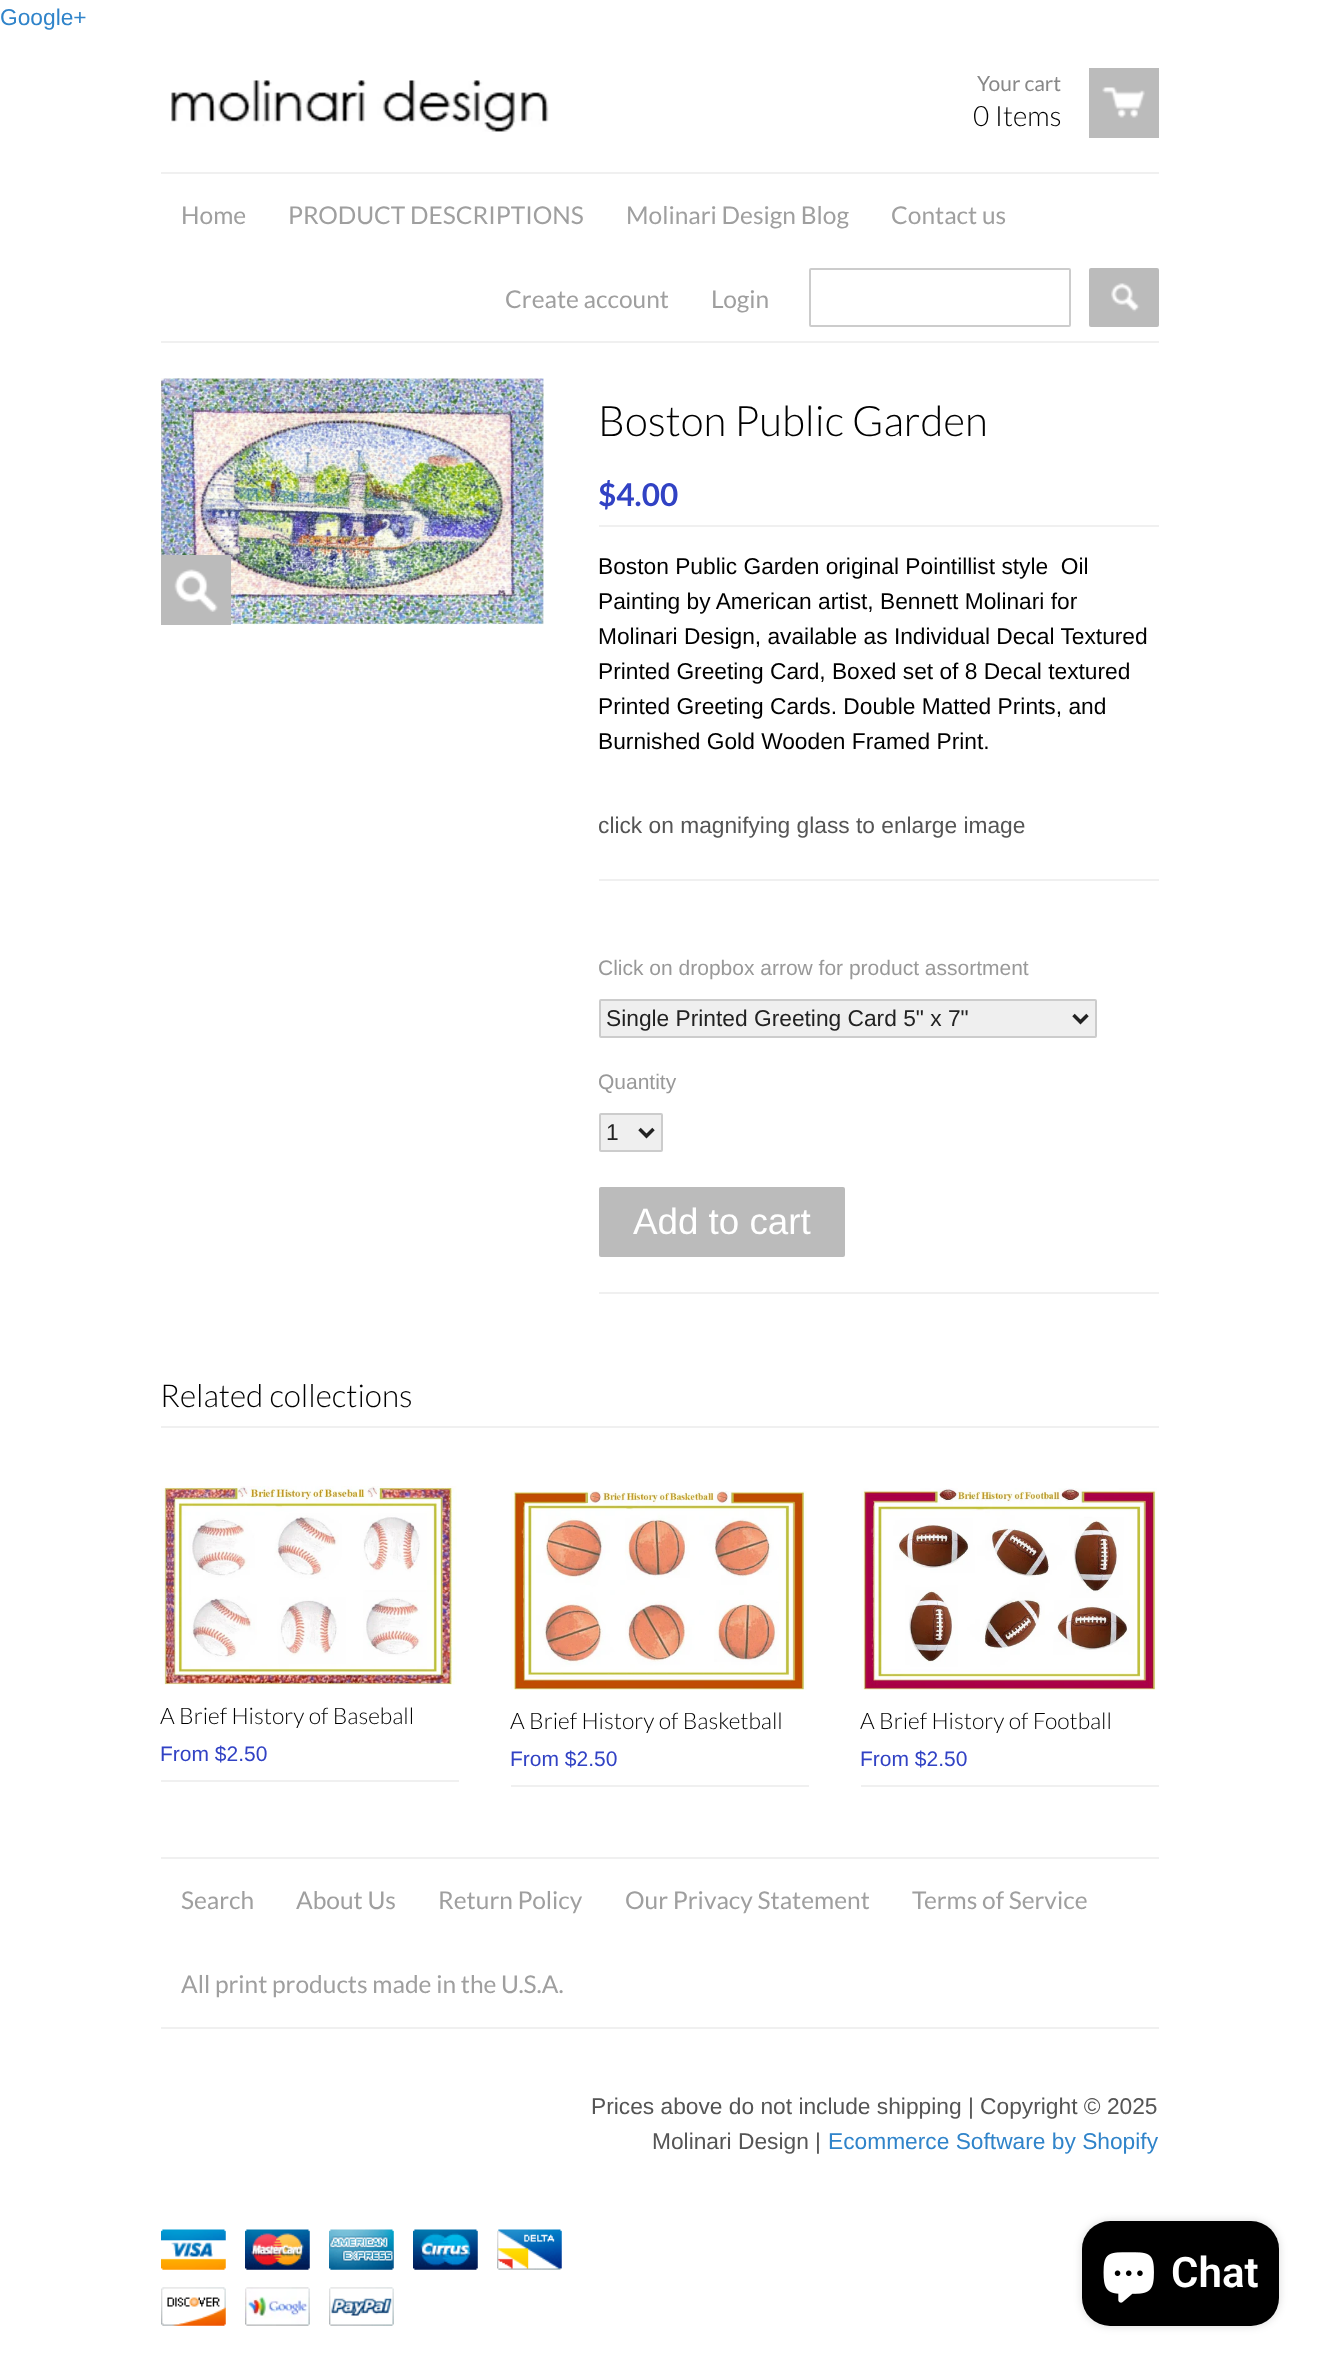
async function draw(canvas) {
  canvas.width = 1317
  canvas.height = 2362
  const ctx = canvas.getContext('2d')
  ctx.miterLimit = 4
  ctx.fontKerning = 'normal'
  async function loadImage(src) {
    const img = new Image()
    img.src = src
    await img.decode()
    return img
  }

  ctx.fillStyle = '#fff'
  ctx.fillRect(0, 0, 1317, 2362)
  ctx.font = '22.75px Liberation Sans'
  ctx.fillStyle = '#3084ca'
  ctx.fillText('Google+', 0, 25)
  ctx.drawImage(await loadImage('image0.png'), 170, 80, 379, 52)
  ctx.font = '21px Lato'
  ctx.fillStyle = '#888'
  ctx.fillText('Your cart', 977, 91)
  ctx.font = '300 28px Lato'
  ctx.fillStyle = '#000'
  ctx.fillText('0 Items', 973, 126)
  ctx.fillStyle = '#bbb'
  ctx.fillRect(1089, 68, 70, 70)
  ctx.drawImage(await loadImage('image1.png'), 1102, 87, 43, 31)
  ctx.fillStyle = '#f0f0f0'
  ctx.fillRect(161, 172, 998, 2)
  ctx.fillRect(161, 341, 998, 2)
  ctx.font = '24.5px Lato'
  ctx.fillStyle = '#9f9f9f'
  ctx.fillText('Home', 181, 224)
  ctx.fillText('PRODUCT DESCRIPTIONS', 288, 224)
  ctx.fillText('Molinari Design Blog', 626, 224)
  ctx.fillText('Contact us', 891, 224)
  ctx.fillText('Create account', 505, 308)
  ctx.fillText('Login', 711, 308)
  ctx.beginPath()
  ctx.roundRect(810, 269, 260, 57, 1)
  ctx.strokeStyle = '#ccc'
  ctx.lineWidth = 2
  ctx.stroke()
  ctx.fillStyle = '#bbb'
  ctx.beginPath()
  ctx.roundRect(1089, 268, 70, 59, 2)
  ctx.fill()
  ctx.drawImage(await loadImage('image2.png'), 1111, 283, 29, 29)
  ctx.drawImage(await loadImage('image3.png'), 161, 378, 383, 247)
  ctx.fillRect(161, 555, 70, 70)
  ctx.drawImage(await loadImage('image4.png'), 174, 569, 44, 43)
  ctx.font = '300 42px Lato'
  ctx.fillStyle = '#000'
  ctx.fillText('Boston Public Garden', 598, 436)
  ctx.fillStyle = '#f0f0f0'
  ctx.fillRect(599, 525, 560, 2)
  ctx.font = 'bold 31.5px Lato'
  ctx.fillStyle = '#3142c4'
  ctx.fillText('$4.00', 598, 506)
  ctx.fillStyle = '#f0f0f0'
  ctx.fillRect(599, 879, 560, 2)
  ctx.font = '22.75px Liberation Sans'
  ctx.fillStyle = '#000'
  ctx.fillText('Boston Public Garden original Pointillist style  Oil', 598, 574)
  ctx.fillText('Painting by American artist, Bennett Molinari for', 598, 609)
  ctx.fillText('Molinari Design, available as Individual Decal Textured', 598, 644)
  ctx.fillText('Printed Greeting Card, Boxed set of 8 Decal textured', 598, 679)
  ctx.fillText('Printed Greeting Cards. Double Matted Prints, and', 598, 714)
  ctx.fillText('Burnished Gold Wooden Framed Print.', 598, 749)
  ctx.save()
  ctx.beginPath()
  ctx.rect(599, 378, 560, 950)
  ctx.clip()
  ctx.fillStyle = '#555'
  ctx.fillText('click on magnifying glass to enlarge image', 598, 833)
  ctx.font = '21px Liberation Sans'
  ctx.fillStyle = '#999'
  ctx.fillText('Click on dropbox arrow for product assortment', 598, 975)
  ctx.restore()
  ctx.fillStyle = '#efefef'
  ctx.beginPath()
  ctx.roundRect(600, 1000, 496, 37, 1)
  ctx.fill()
  ctx.stroke()
  ctx.beginPath()
  ctx.moveTo(1073.5, 1015)
  ctx.lineTo(1080.5, 1022)
  ctx.lineTo(1087.5, 1015)
  ctx.strokeStyle = '#222'
  ctx.lineWidth = 3.5
  ctx.stroke()
  ctx.fillStyle = '#222'
  ctx.fillText('Single Printed Greeting Card 5" x 7"', 606, 1026)
  ctx.save()
  ctx.beginPath()
  ctx.rect(599, 378, 560, 950)
  ctx.clip()
  ctx.font = '21px Liberation Sans'
  ctx.fillStyle = '#999'
  ctx.fillText('Quantity', 598, 1089)
  ctx.restore()
  ctx.fillStyle = '#efefef'
  ctx.beginPath()
  ctx.roundRect(600, 1114, 62, 37, 1)
  ctx.fill()
  ctx.strokeStyle = '#ccc'
  ctx.lineWidth = 2
  ctx.stroke()
  ctx.beginPath()
  ctx.moveTo(639.5, 1129)
  ctx.lineTo(646.5, 1136)
  ctx.lineTo(653.5, 1129)
  ctx.strokeStyle = '#222'
  ctx.lineWidth = 3.5
  ctx.stroke()
  ctx.fillStyle = '#222'
  ctx.fillText('1', 606, 1140)
  ctx.fillStyle = '#bbb'
  ctx.beginPath()
  ctx.roundRect(599, 1187, 246, 70, 2)
  ctx.fill()
  ctx.font = '36.75px Liberation Sans'
  ctx.fillStyle = '#fff'
  ctx.fillText('Add to cart', 633, 1234)
  ctx.fillStyle = '#f0f0f0'
  ctx.fillRect(599, 1292, 560, 2)
  ctx.fillRect(161, 1426, 998, 2)
  ctx.font = '300 31.5px Lato'
  ctx.fillStyle = '#000'
  ctx.fillText('Related collections', 160, 1407)
  ctx.fillStyle = '#f0f0f0'
  ctx.fillRect(161, 1780, 298, 2)
  ctx.drawImage(await loadImage('image5.png'), 161, 1486, 296, 199)
  ctx.font = '300 22.75px Lato'
  ctx.fillStyle = '#000'
  ctx.fillText('A Brief History of Baseball', 160, 1724)
  ctx.font = '21px Liberation Sans'
  ctx.fillStyle = '#3142c4'
  ctx.fillText('From $2.50', 160, 1761)
  ctx.fillStyle = '#f0f0f0'
  ctx.fillRect(511, 1785, 298, 2)
  ctx.drawImage(await loadImage('image6.png'), 511, 1491, 296, 199)
  ctx.font = '300 22.75px Lato'
  ctx.fillStyle = '#000'
  ctx.fillText('A Brief History of Basketball', 510, 1729)
  ctx.font = '21px Liberation Sans'
  ctx.fillStyle = '#3142c4'
  ctx.fillText('From $2.50', 510, 1766)
  ctx.fillStyle = '#f0f0f0'
  ctx.fillRect(861, 1785, 298, 2)
  ctx.drawImage(await loadImage('image7.png'), 861, 1488, 296, 202)
  ctx.font = '300 22.75px Lato'
  ctx.fillStyle = '#000'
  ctx.fillText('A Brief History of Football', 860, 1729)
  ctx.font = '21px Liberation Sans'
  ctx.fillStyle = '#3142c4'
  ctx.fillText('From $2.50', 860, 1766)
  ctx.fillStyle = '#f0f0f0'
  ctx.fillRect(161, 1857, 998, 2)
  ctx.fillRect(161, 2027, 998, 2)
  ctx.font = '24.5px Lato'
  ctx.fillStyle = '#9f9f9f'
  ctx.fillText('Search', 181, 1909)
  ctx.fillText('About Us', 296, 1909)
  ctx.fillText('Return Policy', 438, 1909)
  ctx.fillText('Our Privacy Statement', 625, 1909)
  ctx.fillText('Terms of Service', 912, 1909)
  ctx.fillText('All print products made in the U.S.A.', 181, 1993)
  ctx.font = '22.75px Liberation Sans'
  ctx.fillStyle = '#555'
  ctx.fillText('Prices above do not include shipping | Copyright © 2025', 591, 2114)
  ctx.fillText('Molinari Design |', 652, 2149)
  ctx.fillStyle = '#3084ca'
  ctx.fillText('Ecommerce Software by Shopify', 828, 2149)
  ctx.drawImage(await loadImage('image8.png'), 161, 2229, 65, 41)
  ctx.drawImage(await loadImage('image9.png'), 245, 2229, 65, 41)
  ctx.drawImage(await loadImage('image10.png'), 329, 2229, 65, 41)
  ctx.drawImage(await loadImage('image11.png'), 413, 2229, 65, 41)
  ctx.drawImage(await loadImage('image12.png'), 497, 2229, 65, 41)
  ctx.drawImage(await loadImage('image13.png'), 161, 2287, 65, 39)
  ctx.drawImage(await loadImage('image14.png'), 245, 2287, 65, 39)
  ctx.drawImage(await loadImage('image15.png'), 329, 2287, 65, 39)
  ctx.fillStyle = '#00000026'
  ctx.filter = 'blur(4.5px)'
  ctx.beginPath()
  ctx.roundRect(1082, 2221, 197, 105, 28)
  ctx.fill()
  ctx.filter = 'none'
  ctx.fillStyle = '#000'
  ctx.beginPath()
  ctx.roundRect(1082, 2221, 197, 105, 28)
  ctx.fill()
  ctx.drawImage(await loadImage('image16.png'), 1103, 2252, 51, 51)
  ctx.font = '600 42px Roboto'
  ctx.fillStyle = '#fff'
  ctx.fillText('Chat', 1171, 2287)
}

draw(document.querySelector('canvas'))
